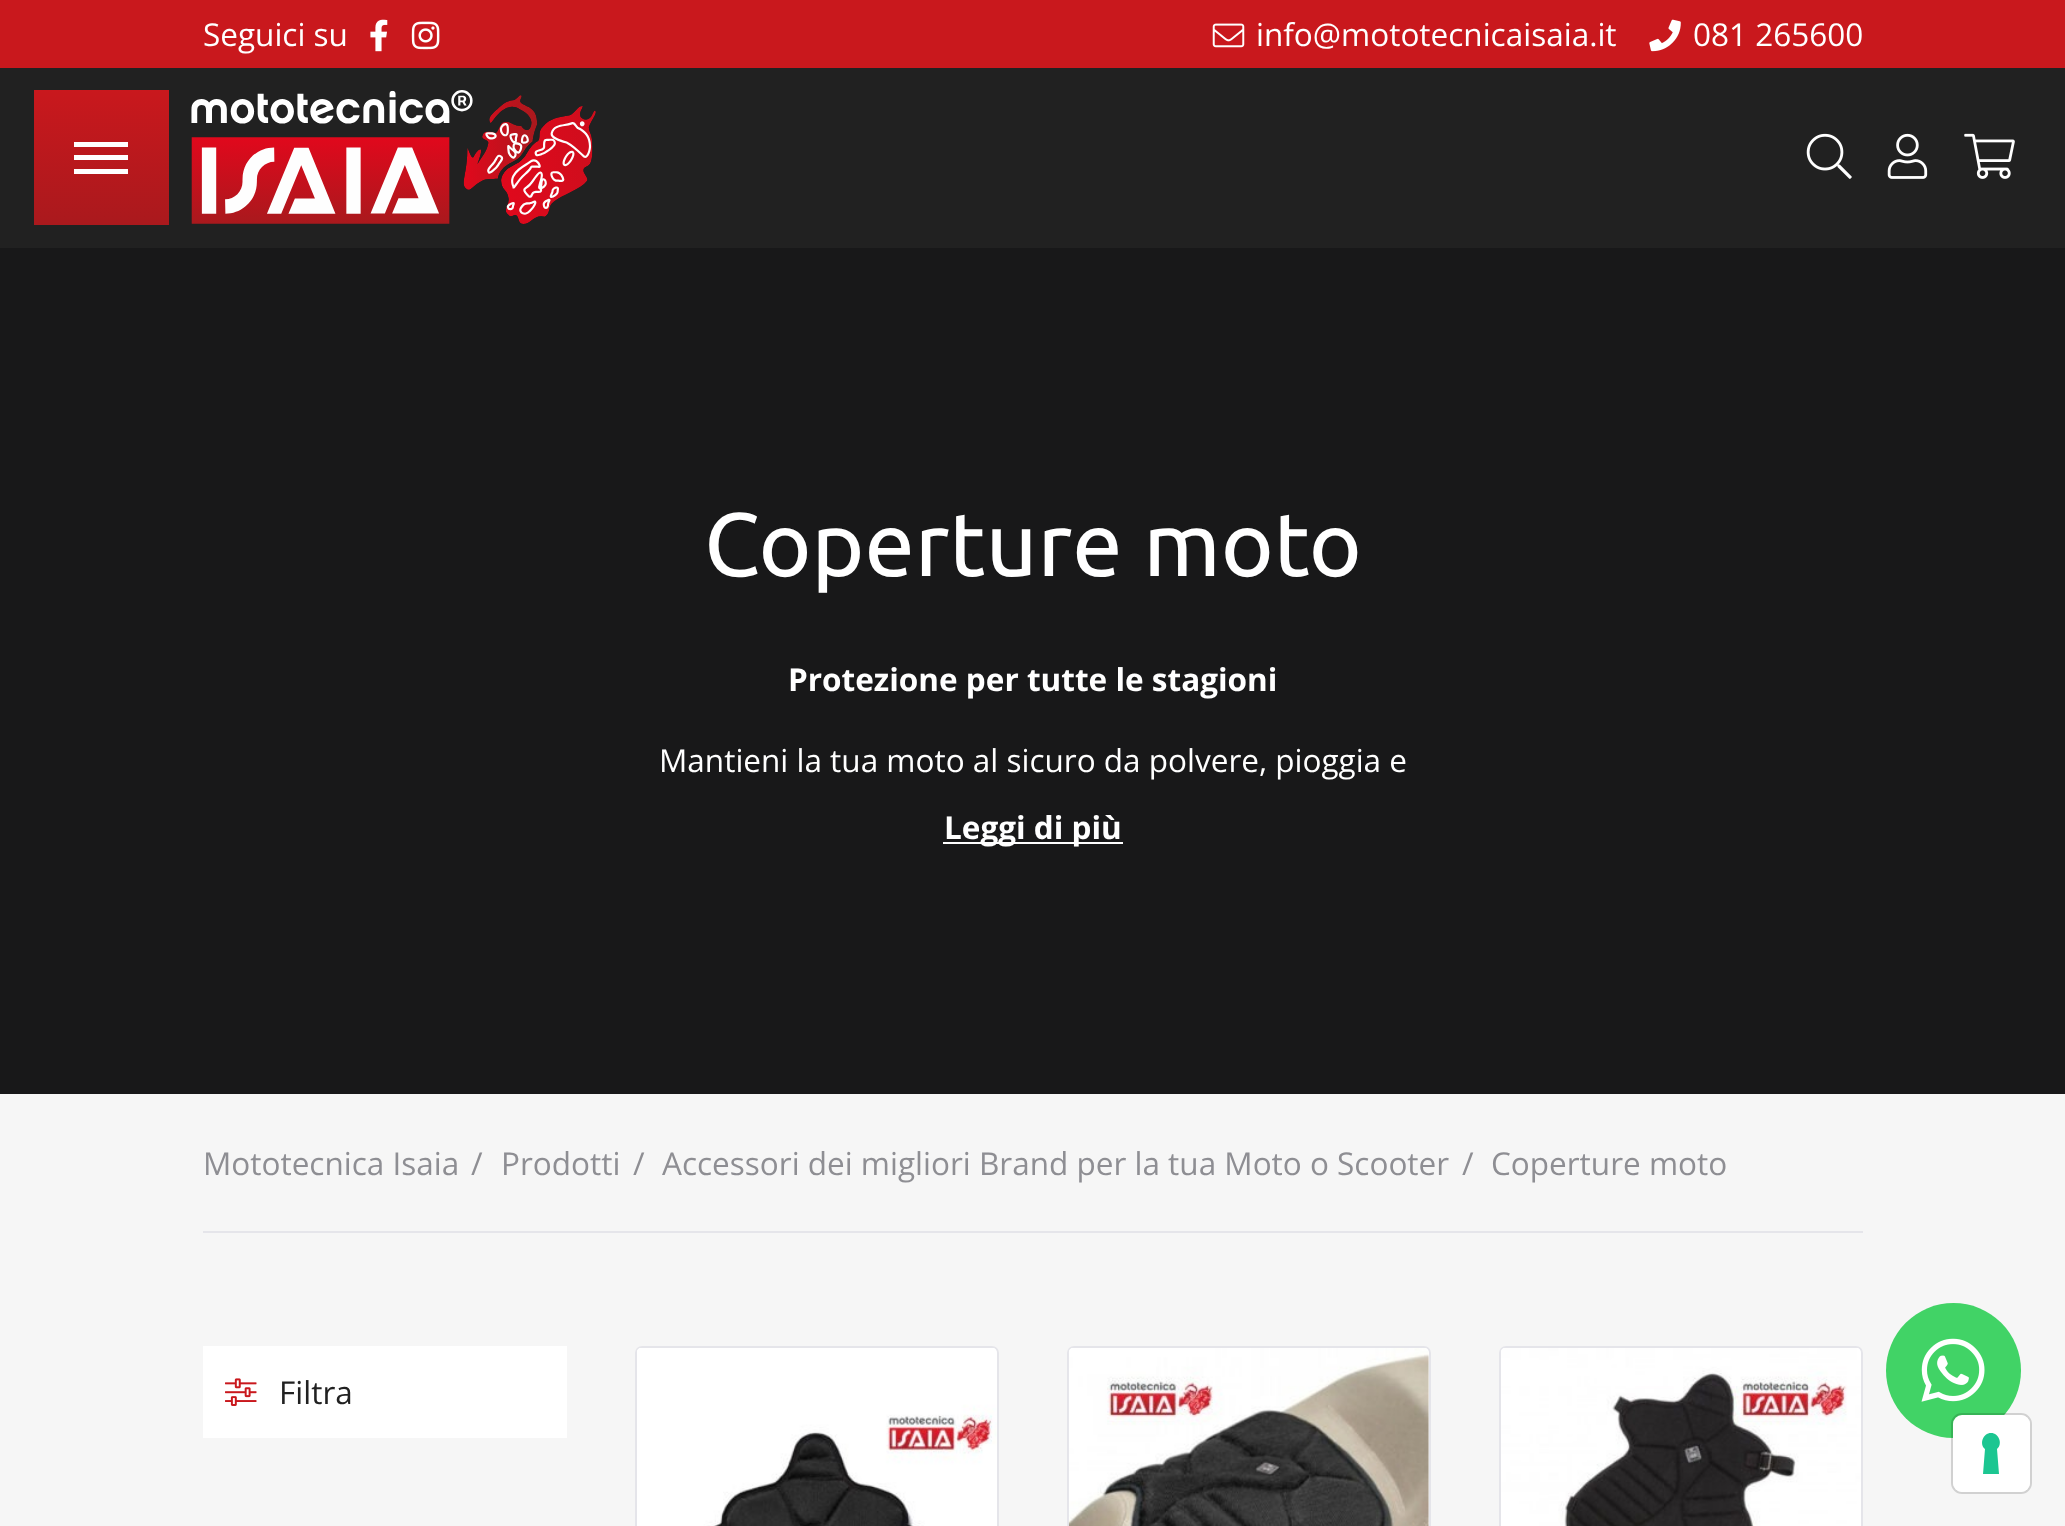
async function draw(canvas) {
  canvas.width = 2065
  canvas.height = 1526
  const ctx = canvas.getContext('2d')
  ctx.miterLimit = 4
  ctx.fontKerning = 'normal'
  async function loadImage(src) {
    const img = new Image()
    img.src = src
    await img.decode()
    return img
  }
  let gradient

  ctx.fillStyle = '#f6f6f6'
  ctx.fillRect(0, 0, 2065, 1526)
  ctx.fillStyle = '#212121'
  ctx.fillRect(0, 68, 2065, 180)
  ctx.fillStyle = '#c9181d'
  ctx.fillRect(0, 0, 2065, 68)
  ctx.font = '31.5px Open Sans'
  ctx.fillStyle = '#fff'
  ctx.fillText('Seguici su', 203, 46)
  ctx.drawImage(await loadImage('image0.png'), 370, 19, 18, 33)
  ctx.drawImage(await loadImage('image1.png'), 411, 21, 29, 29)
  ctx.drawImage(await loadImage('image2.png'), 1212, 23, 33, 25)
  ctx.fillText('info@mototecnicaisaia.it', 1256, 46)
  ctx.drawImage(await loadImage('image3.png'), 1649, 19, 32, 33)
  ctx.fillText('081 265600', 1693, 46)
  gradient = ctx.createLinearGradient(101, 90, 101, 225)
  gradient.addColorStop(0, '#c9181d')
  gradient.addColorStop(1, '#aa191d')
  ctx.fillStyle = gradient
  ctx.fillRect(34, 90, 135, 135)
  ctx.fillStyle = '#fff'
  ctx.fillRect(74, 142, 54, 5)
  ctx.fillRect(74, 155, 54, 5)
  ctx.fillRect(74, 169, 54, 5)
  ctx.drawImage(await loadImage('image4.png'), 191, 90, 405, 134)
  ctx.drawImage(await loadImage('image5.png'), 1806, 133, 46, 46)
  ctx.drawImage(await loadImage('image6.png'), 1887, 133, 41, 46)
  ctx.drawImage(await loadImage('image7.png'), 1964, 133, 51, 46)
  ctx.fillStyle = '#181819'
  ctx.fillRect(0, 248, 2065, 846)
  ctx.font = '90px Ubuntu'
  ctx.fillStyle = '#fff'
  ctx.fillText('Coperture moto', 704, 576)
  ctx.font = 'bold 31.5px Open Sans'
  ctx.fillText('Protezione per tutte le stagioni', 788, 691)
  ctx.font = '31.5px Open Sans'
  ctx.fillText('Mantieni la tua moto al sicuro da polvere, pioggia e', 659, 772)
  ctx.fillRect(943, 842, 180, 2)
  ctx.font = 'bold 31.5px Open Sans'
  ctx.fillText('Leggi di più', 944, 839)
  ctx.fillStyle = '#e5e5ea'
  ctx.fillRect(203, 1231, 1660, 2)
  ctx.font = '31.5px Open Sans'
  ctx.fillStyle = '#8e8e93'
  ctx.fillText('Mototecnica Isaia', 203, 1175)
  ctx.fillText('/', 471, 1175)
  ctx.fillText('Prodotti', 501, 1175)
  ctx.fillText('/', 633, 1175)
  ctx.fillText('Accessori dei migliori Brand per la tua Moto o Scooter', 662, 1175)
  ctx.fillText('/', 1462, 1175)
  ctx.fillText('Coperture moto', 1491, 1175)
  ctx.fillStyle = '#fff'
  ctx.fillRect(203, 1346, 364, 92)
  ctx.drawImage(await loadImage('image8.png'), 225, 1378, 32, 28)
  ctx.fillStyle = '#212121'
  ctx.fillText('Filtra', 279, 1404)
  ctx.fillStyle = '#fff'
  ctx.beginPath()
  ctx.roundRect(636, 1347, 362, 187, 6)
  ctx.fill()
  ctx.strokeStyle = '#e5e5ea'
  ctx.lineWidth = 2
  ctx.stroke()
  ctx.drawImage(await loadImage('image9.png'), 637, 1348, 360, 178)
  ctx.beginPath()
  ctx.roundRect(1068, 1347, 362, 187, 6)
  ctx.fill()
  ctx.stroke()
  ctx.drawImage(await loadImage('image10.png'), 1068, 1348, 361, 178)
  ctx.beginPath()
  ctx.roundRect(1500, 1347, 362, 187, 6)
  ctx.fill()
  ctx.stroke()
  ctx.drawImage(await loadImage('image11.png'), 1501, 1348, 360, 178)
  ctx.fillStyle = '#41d366'
  ctx.beginPath()
  ctx.arc(1953.5, 1370.5, 67.5, 0, 2 * Math.PI)
  ctx.fill()
  ctx.drawImage(await loadImage('image12.png'), 1921, 1338, 64, 64)
  ctx.beginPath()
  ctx.roundRect(1952, 1414, 79, 79, 10)
  ctx.strokeStyle = '#00000026'
  ctx.stroke()
  ctx.fillStyle = '#fff'
  ctx.beginPath()
  ctx.roundRect(1953, 1415, 77, 77, 9)
  ctx.fill()
  ctx.fillStyle = '#1cc691'
  ctx.beginPath()
  ctx.moveTo(1991, 1433)
  ctx.bezierCurveTo(1999, 1433, 2003, 1444, 1997, 1449)
  ctx.lineTo(1999, 1474)
  ctx.lineTo(1983, 1474)
  ctx.lineTo(1985, 1449)
  ctx.bezierCurveTo(1979, 1444, 1983, 1433, 1991, 1433)
  ctx.closePath()
  ctx.fill('evenodd')
}

draw(document.querySelector('canvas'))
